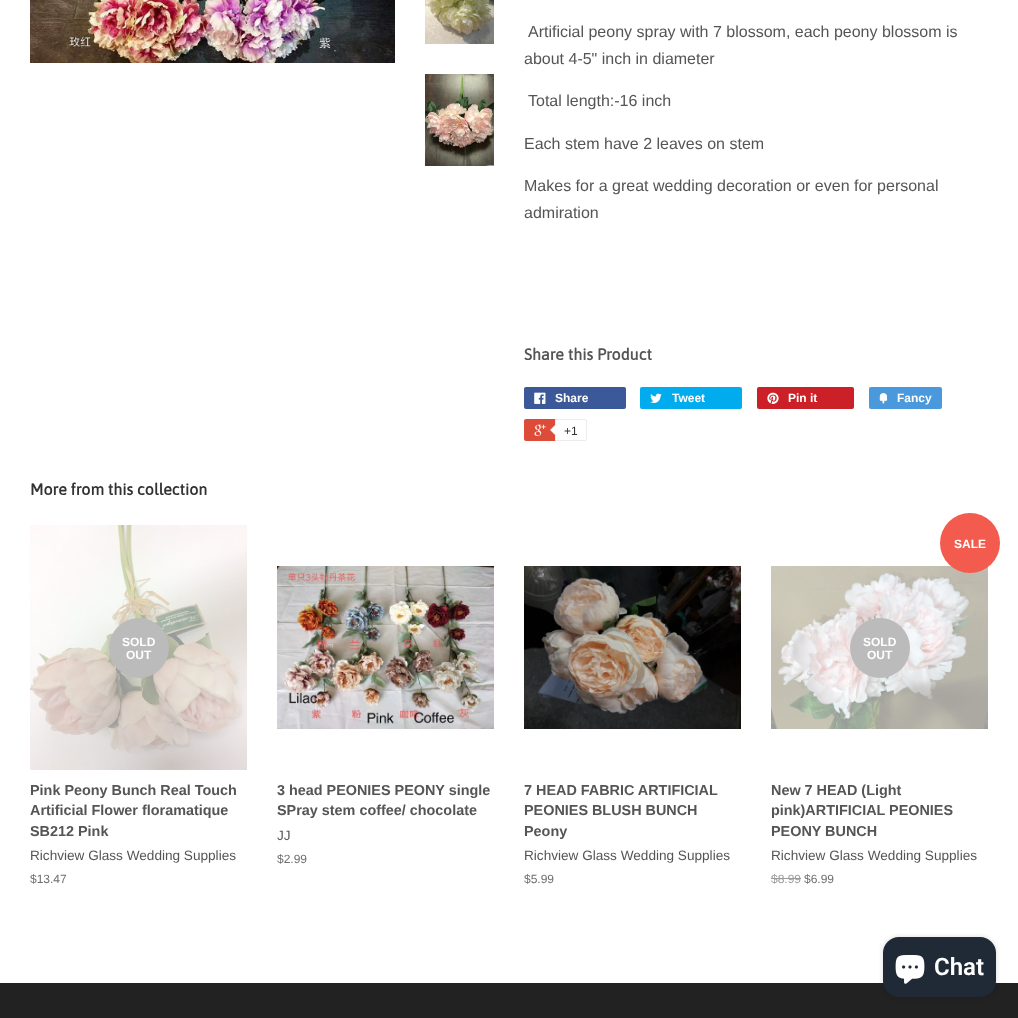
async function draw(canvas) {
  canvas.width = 1018
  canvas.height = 1018
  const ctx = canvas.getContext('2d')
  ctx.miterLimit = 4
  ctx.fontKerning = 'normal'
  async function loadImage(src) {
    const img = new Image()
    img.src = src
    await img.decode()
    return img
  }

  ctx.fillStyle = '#fff'
  ctx.fillRect(0, 0, 1018, 1018)
  ctx.drawImage(await loadImage('image0.png'), 30, 0, 365, 63)
  ctx.drawImage(await loadImage('image1.png'), 425, 0, 69, 44)
  ctx.drawImage(await loadImage('image2.png'), 425, 74, 69, 92)
  ctx.font = '16px Liberation Sans'
  ctx.fillStyle = '#555'
  ctx.fillText('Artificial peony spray with 7 blossom, each peony blossom is', 528, 37)
  ctx.fillText('about 4-5" inch in diameter', 524, 64)
  ctx.fillText('Total length:-16 inch', 528, 106)
  ctx.fillText('Each stem have 2 leaves on stem', 524, 149)
  ctx.fillText('Makes for a great wedding decoration or even for personal', 524, 191)
  ctx.fillText('admiration', 524, 218)
  ctx.font = 'bold 16px Asap'
  ctx.fillText('Share this Product', 524, 360)
  ctx.fillStyle = '#3b5998'
  ctx.beginPath()
  ctx.roundRect(524, 387, 102, 22, 2)
  ctx.fill()
  ctx.drawImage(await loadImage('image3.png'), 534, 392, 12, 12)
  ctx.font = 'bold 12px Liberation Sans'
  ctx.fillStyle = '#fff'
  ctx.fillText('Share', 555, 402)
  ctx.fillStyle = '#00aced'
  ctx.beginPath()
  ctx.roundRect(640, 387, 102, 22, 2)
  ctx.fill()
  ctx.drawImage(await loadImage('image4.png'), 650, 393, 12, 10)
  ctx.fillStyle = '#fff'
  ctx.fillText('Tweet', 672, 402)
  ctx.fillStyle = '#cb2027'
  ctx.beginPath()
  ctx.roundRect(757, 387, 97, 22, 2)
  ctx.fill()
  ctx.drawImage(await loadImage('image5.png'), 767, 392, 12, 12)
  ctx.fillStyle = '#fff'
  ctx.fillText('Pin it', 788, 402)
  ctx.fillStyle = '#4999dc'
  ctx.beginPath()
  ctx.roundRect(869, 387, 73, 22, 2)
  ctx.fill()
  ctx.drawImage(await loadImage('image6.png'), 879, 393, 9, 11)
  ctx.fillStyle = '#fff'
  ctx.fillText('Fancy', 897, 402)
  ctx.fillStyle = '#dd4b39'
  ctx.beginPath()
  ctx.roundRect(524, 419, 61, 22, 2)
  ctx.fill()
  ctx.drawImage(await loadImage('image7.png'), 534, 424, 12, 12)
  ctx.fillStyle = '#fff'
  ctx.beginPath()
  ctx.roundRect(555.5, 419.5, 31, 21, [0, 1.5, 1.5, 0])
  ctx.fill()
  ctx.strokeStyle = '#ececec'
  ctx.stroke()
  ctx.fillStyle = '#ececec'
  ctx.beginPath()
  ctx.moveTo(556, 424)
  ctx.lineTo(556, 436)
  ctx.lineTo(550, 430)
  ctx.closePath()
  ctx.fill()
  ctx.fillStyle = '#fff'
  ctx.beginPath()
  ctx.moveTo(557, 424)
  ctx.lineTo(557, 436)
  ctx.lineTo(551, 430)
  ctx.closePath()
  ctx.fill()
  ctx.font = '12px Liberation Sans'
  ctx.fillStyle = '#333'
  ctx.fillText('+1', 564, 435)
  ctx.font = 'bold 16px Asap'
  ctx.fillText('More from this collection', 30, 495)
  ctx.drawImage(await loadImage('image8.png'), 30, 525, 217, 245)
  ctx.fillStyle = '#bbb'
  ctx.beginPath()
  ctx.arc(139, 648, 30, 0, 2 * Math.PI)
  ctx.fill()
  ctx.font = 'bold 12px Liberation Sans'
  ctx.fillStyle = '#fff'
  ctx.fillText('SOLD', 122, 646)
  ctx.fillText('OUT', 126, 659)
  ctx.font = 'bold 14.4px Liberation Sans'
  ctx.fillStyle = '#555'
  ctx.fillText('Pink Peony Bunch Real Touch', 30, 795)
  ctx.fillText('Artificial Flower floramatique', 30, 815)
  ctx.fillText('SB212 Pink', 30, 836)
  ctx.font = '13.6px Liberation Sans'
  ctx.fillText('Richview Glass Wedding Supplies', 30, 860)
  ctx.font = '12px Liberation Sans'
  ctx.fillStyle = '#6e6e6e'
  ctx.fillText('$13.47', 30, 883)
  ctx.drawImage(await loadImage('image9.png'), 277, 566, 217, 163)
  ctx.font = 'bold 14.4px Liberation Sans'
  ctx.fillStyle = '#555'
  ctx.fillText('3 head PEONIES PEONY single', 277, 795)
  ctx.fillText('SPray stem coffee/ chocolate', 277, 815)
  ctx.font = '13.6px Liberation Sans'
  ctx.fillText('JJ', 277, 840)
  ctx.font = '12px Liberation Sans'
  ctx.fillStyle = '#6e6e6e'
  ctx.fillText('$2.99', 277, 863)
  ctx.drawImage(await loadImage('image10.png'), 524, 566, 217, 163)
  ctx.font = 'bold 14.4px Liberation Sans'
  ctx.fillStyle = '#555'
  ctx.fillText('7 HEAD FABRIC ARTIFICIAL', 524, 795)
  ctx.fillText('PEONIES BLUSH BUNCH', 524, 815)
  ctx.fillText('Peony', 524, 836)
  ctx.font = '13.6px Liberation Sans'
  ctx.fillText('Richview Glass Wedding Supplies', 524, 860)
  ctx.font = '12px Liberation Sans'
  ctx.fillStyle = '#6e6e6e'
  ctx.fillText('$5.99', 524, 883)
  ctx.drawImage(await loadImage('image11.png'), 771, 566, 217, 163)
  ctx.fillStyle = '#f45b4f'
  ctx.beginPath()
  ctx.arc(970, 543, 30, 0, 2 * Math.PI)
  ctx.fill()
  ctx.font = 'bold 12px Liberation Sans'
  ctx.fillStyle = '#fff'
  ctx.fillText('SALE', 954, 548)
  ctx.fillStyle = '#bbb'
  ctx.beginPath()
  ctx.arc(880, 648, 30, 0, 2 * Math.PI)
  ctx.fill()
  ctx.fillStyle = '#fff'
  ctx.fillText('SOLD', 863, 646)
  ctx.fillText('OUT', 867, 659)
  ctx.font = 'bold 14.4px Liberation Sans'
  ctx.fillStyle = '#555'
  ctx.fillText('New 7 HEAD (Light', 771, 795)
  ctx.fillText('pink)ARTIFICIAL PEONIES', 771, 815)
  ctx.fillText('PEONY BUNCH', 771, 836)
  ctx.font = '13.6px Liberation Sans'
  ctx.fillText('Richview Glass Wedding Supplies', 771, 860)
  ctx.font = '12px Liberation Sans'
  ctx.fillStyle = '#9a9a9a'
  ctx.fillText('$8.99', 771, 883)
  ctx.fillRect(771, 878, 30, 1)
  ctx.fillStyle = '#6e6e6e'
  ctx.fillText('$6.99', 804, 883)
  ctx.fillStyle = '#222'
  ctx.fillRect(0, 983, 1018, 35)
  ctx.fillStyle = '#00000026'
  ctx.filter = 'blur(2.5px)'
  ctx.beginPath()
  ctx.roundRect(883, 937, 113, 60, 16)
  ctx.fill()
  ctx.filter = 'none'
  ctx.fillStyle = '#202a36'
  ctx.beginPath()
  ctx.roundRect(883, 937, 113, 60, 16)
  ctx.fill()
  ctx.drawImage(await loadImage('image12.png'), 895, 955, 30, 29)
  ctx.font = '600 24px Roboto'
  ctx.fillStyle = '#fff'
  ctx.fillText('Chat', 934, 975)
}

draw(document.querySelector('canvas'))
